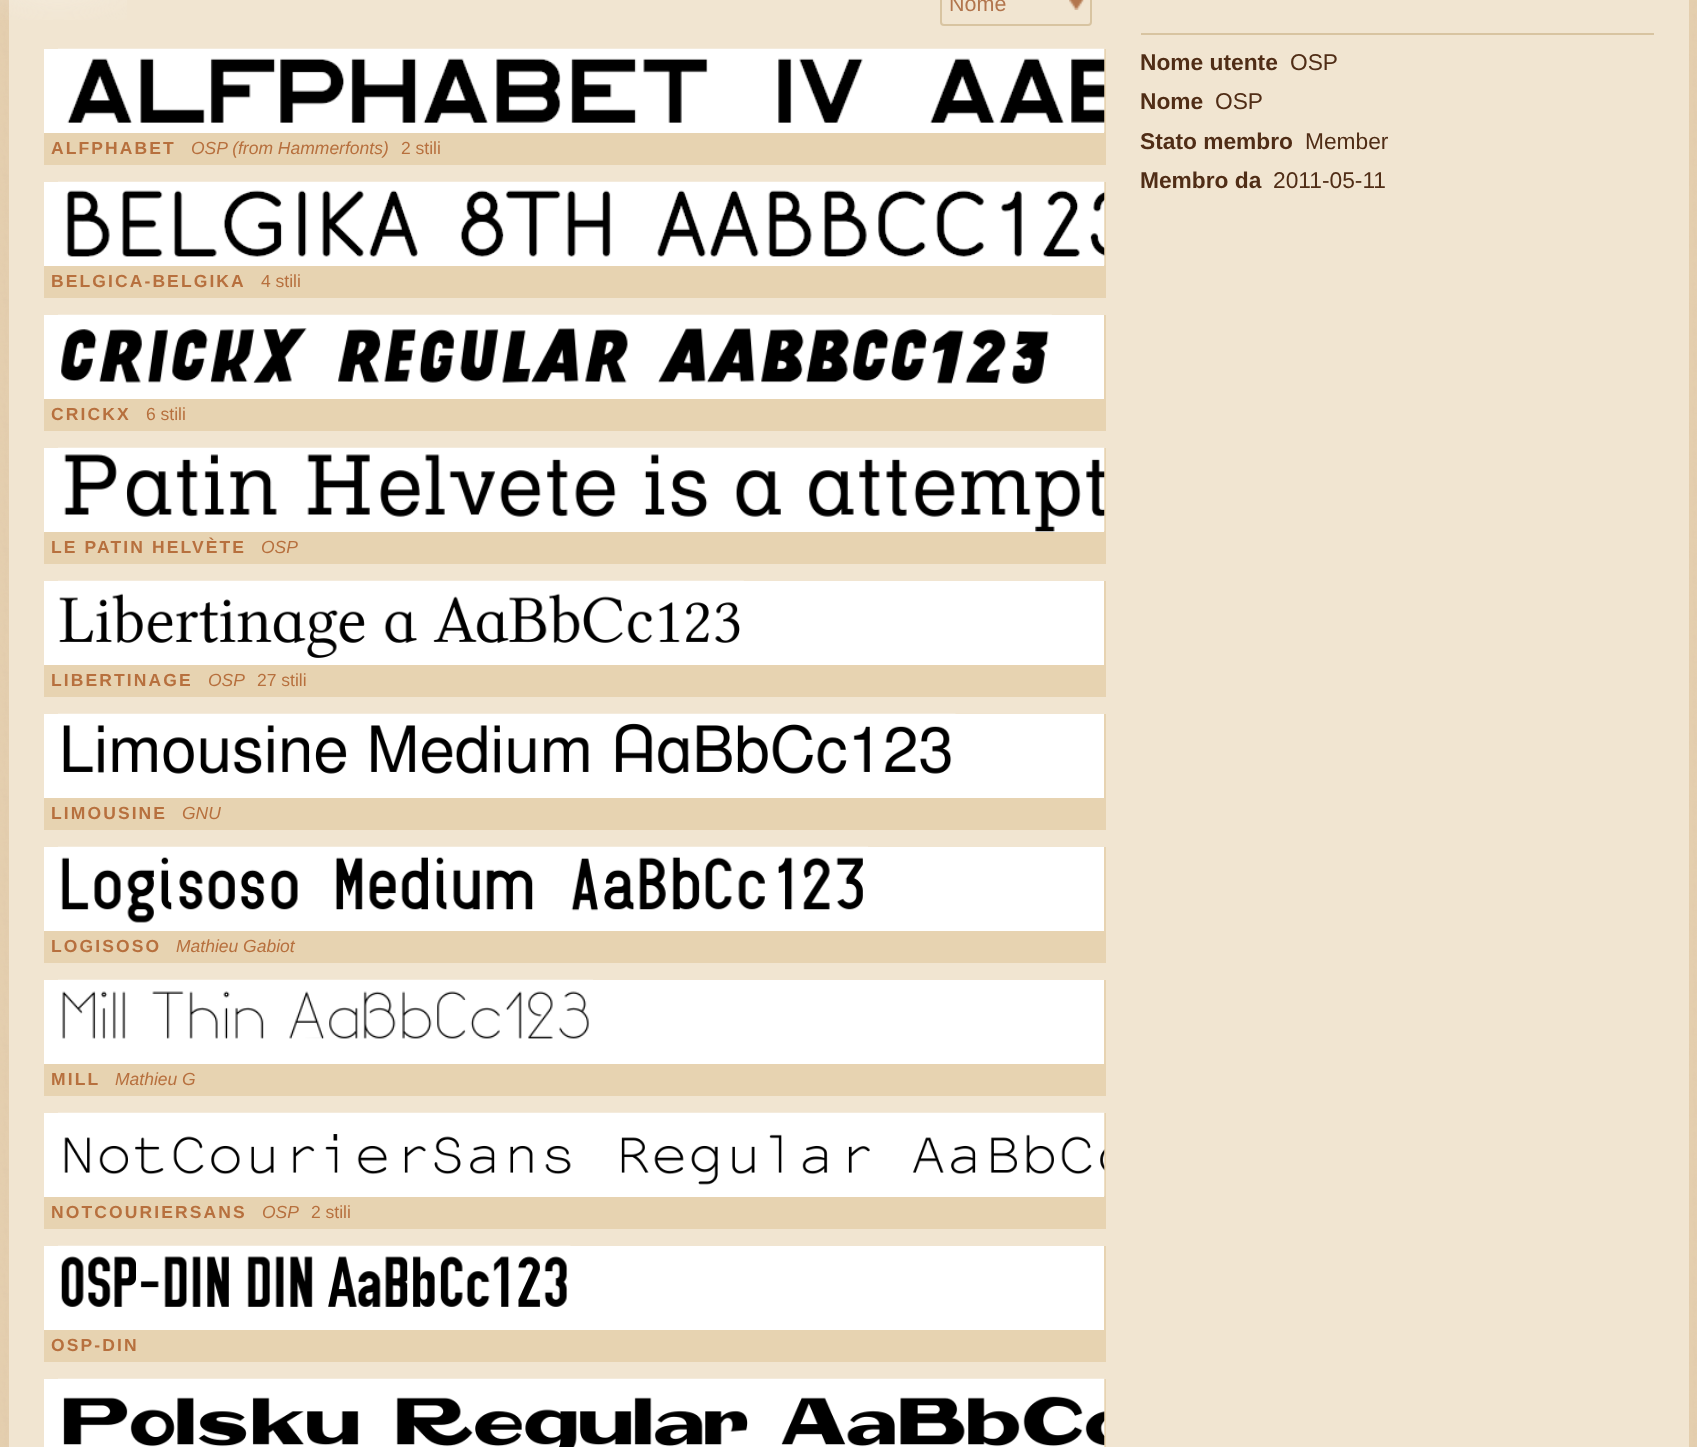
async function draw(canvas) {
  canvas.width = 1697
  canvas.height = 1447
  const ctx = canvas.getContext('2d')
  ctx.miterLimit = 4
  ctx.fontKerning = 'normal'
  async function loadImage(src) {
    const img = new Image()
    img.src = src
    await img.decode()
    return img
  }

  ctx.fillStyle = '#e7d3b1'
  ctx.fillRect(0, 0, 1697, 1447)
  ctx.drawImage(await loadImage('image0.png'), 0, 0, 1697, 1447)
  ctx.fillStyle = '#f1e5d1'
  ctx.fillRect(9, 0, 1680, 1447)
  ctx.drawImage(await loadImage('image1.png'), 0, 0, 127, 20)
  ctx.drawImage(await loadImage('image2.png'), 1069, 0, 15, 10)
  ctx.beginPath()
  ctx.roundRect(941, -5, 150, 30, 3)
  ctx.strokeStyle = '#d8c4a1'
  ctx.lineWidth = 2
  ctx.stroke()
  ctx.font = '21.5px Liberation Sans'
  ctx.fillStyle = '#b2754d'
  ctx.fillText('Nome', 949, 11)
  ctx.fillStyle = '#fff'
  ctx.fillRect(44, 49, 1060, 84)
  ctx.fillStyle = '#e7d3b1'
  ctx.fillRect(1104, 49, 2, 116)
  ctx.drawImage(await loadImage('image3.png'), 58, 48, 1047, 85)
  ctx.fillRect(44, 133, 1060, 32)
  ctx.letterSpacing = '2.1px'
  ctx.font = 'bold 17.5px Liberation Sans'
  ctx.fillStyle = '#b7703e'
  ctx.fillText('ALFPHABET', 51, 154)
  ctx.letterSpacing = '0px'
  ctx.font = 'italic 17.5px Liberation Sans'
  ctx.fillText('OSP (from Hammerfonts)', 191, 154)
  ctx.font = '17.5px Liberation Sans'
  ctx.fillText('2 stili', 401, 154)
  ctx.fillStyle = '#fff'
  ctx.fillRect(44, 182, 1060, 84)
  ctx.fillStyle = '#e7d3b1'
  ctx.fillRect(1104, 182, 2, 116)
  ctx.drawImage(await loadImage('image4.png'), 58, 181, 1047, 85)
  ctx.fillRect(44, 266, 1060, 32)
  ctx.letterSpacing = '2.1px'
  ctx.font = 'bold 17.5px Liberation Sans'
  ctx.fillStyle = '#b7703e'
  ctx.fillText('BELGICA-BELGIKA', 51, 287)
  ctx.letterSpacing = '0px'
  ctx.font = '17.5px Liberation Sans'
  ctx.fillText('4 stili', 261, 287)
  ctx.fillStyle = '#fff'
  ctx.fillRect(44, 315, 1060, 84)
  ctx.fillStyle = '#e7d3b1'
  ctx.fillRect(1104, 315, 2, 116)
  ctx.drawImage(await loadImage('image5.png'), 58, 314, 994, 70)
  ctx.fillRect(44, 399, 1060, 32)
  ctx.letterSpacing = '2.1px'
  ctx.font = 'bold 17.5px Liberation Sans'
  ctx.fillStyle = '#b7703e'
  ctx.fillText('CRICKX', 51, 420)
  ctx.letterSpacing = '0px'
  ctx.font = '17.5px Liberation Sans'
  ctx.fillText('6 stili', 146, 420)
  ctx.fillStyle = '#fff'
  ctx.fillRect(44, 448, 1060, 84)
  ctx.fillStyle = '#e7d3b1'
  ctx.fillRect(1104, 448, 2, 116)
  ctx.drawImage(await loadImage('image6.png'), 58, 447, 1047, 85)
  ctx.fillRect(44, 532, 1060, 32)
  ctx.letterSpacing = '2.1px'
  ctx.font = 'bold 17.5px Liberation Sans'
  ctx.fillStyle = '#b7703e'
  ctx.fillText('LE PATIN HELVÈTE', 51, 553)
  ctx.letterSpacing = '0px'
  ctx.font = 'italic 17.5px Liberation Sans'
  ctx.fillText('OSP', 261, 553)
  ctx.fillStyle = '#fff'
  ctx.fillRect(44, 581, 1060, 84)
  ctx.fillStyle = '#e7d3b1'
  ctx.fillRect(1104, 581, 2, 116)
  ctx.drawImage(await loadImage('image7.png'), 58, 580, 686, 78)
  ctx.fillRect(44, 665, 1060, 32)
  ctx.letterSpacing = '2.1px'
  ctx.font = 'bold 17.5px Liberation Sans'
  ctx.fillStyle = '#b7703e'
  ctx.fillText('LIBERTINAGE', 51, 686)
  ctx.letterSpacing = '0px'
  ctx.font = 'italic 17.5px Liberation Sans'
  ctx.fillText('OSP', 208, 686)
  ctx.font = '17.5px Liberation Sans'
  ctx.fillText('27 stili', 257, 686)
  ctx.fillStyle = '#fff'
  ctx.fillRect(44, 714, 1060, 84)
  ctx.fillStyle = '#e7d3b1'
  ctx.fillRect(1104, 714, 2, 116)
  ctx.drawImage(await loadImage('image8.png'), 58, 713, 898, 61)
  ctx.fillRect(44, 798, 1060, 32)
  ctx.letterSpacing = '2.1px'
  ctx.font = 'bold 17.5px Liberation Sans'
  ctx.fillStyle = '#b7703e'
  ctx.fillText('LIMOUSINE', 51, 819)
  ctx.letterSpacing = '0px'
  ctx.font = 'italic 17.5px Liberation Sans'
  ctx.fillText('GNU', 182, 819)
  ctx.fillStyle = '#fff'
  ctx.fillRect(44, 847, 1060, 84)
  ctx.fillStyle = '#e7d3b1'
  ctx.fillRect(1104, 847, 2, 116)
  ctx.drawImage(await loadImage('image9.png'), 58, 846, 810, 77)
  ctx.fillRect(44, 931, 1060, 32)
  ctx.letterSpacing = '2.1px'
  ctx.font = 'bold 17.5px Liberation Sans'
  ctx.fillStyle = '#b7703e'
  ctx.fillText('LOGISOSO', 51, 952)
  ctx.letterSpacing = '0px'
  ctx.font = 'italic 17.5px Liberation Sans'
  ctx.fillText('Mathieu Gabiot', 176, 952)
  ctx.fillStyle = '#fff'
  ctx.fillRect(44, 980, 1060, 84)
  ctx.fillStyle = '#e7d3b1'
  ctx.fillRect(1104, 980, 2, 116)
  ctx.drawImage(await loadImage('image10.png'), 58, 979, 535, 60)
  ctx.fillRect(44, 1064, 1060, 32)
  ctx.letterSpacing = '2.1px'
  ctx.font = 'bold 17.5px Liberation Sans'
  ctx.fillStyle = '#b7703e'
  ctx.fillText('MILL', 51, 1085)
  ctx.letterSpacing = '0px'
  ctx.font = 'italic 17.5px Liberation Sans'
  ctx.fillText('Mathieu G', 115, 1085)
  ctx.fillStyle = '#fff'
  ctx.fillRect(44, 1113, 1060, 84)
  ctx.fillStyle = '#e7d3b1'
  ctx.fillRect(1104, 1113, 2, 116)
  ctx.drawImage(await loadImage('image11.png'), 58, 1112, 1047, 85)
  ctx.fillRect(44, 1197, 1060, 32)
  ctx.letterSpacing = '2.1px'
  ctx.font = 'bold 17.5px Liberation Sans'
  ctx.fillStyle = '#b7703e'
  ctx.fillText('NOTCOURIERSANS', 51, 1218)
  ctx.letterSpacing = '0px'
  ctx.font = 'italic 17.5px Liberation Sans'
  ctx.fillText('OSP', 262, 1218)
  ctx.font = '17.5px Liberation Sans'
  ctx.fillText('2 stili', 311, 1218)
  ctx.fillStyle = '#fff'
  ctx.fillRect(44, 1246, 1060, 84)
  ctx.fillStyle = '#e7d3b1'
  ctx.fillRect(1104, 1246, 2, 116)
  ctx.drawImage(await loadImage('image12.png'), 58, 1245, 513, 62)
  ctx.fillRect(44, 1330, 1060, 32)
  ctx.letterSpacing = '2.1px'
  ctx.font = 'bold 17.5px Liberation Sans'
  ctx.fillStyle = '#b7703e'
  ctx.fillText('OSP-DIN', 51, 1351)
  ctx.fillStyle = '#fff'
  ctx.fillRect(44, 1379, 14, 68)
  ctx.fillStyle = '#e7d3b1'
  ctx.fillRect(1104, 1379, 2, 68)
  ctx.drawImage(await loadImage('image13.png'), 58, 1378, 1047, 69)
  ctx.fillStyle = '#d8c4a1'
  ctx.fillRect(1141, 33, 513, 2)
  ctx.letterSpacing = '0px'
  ctx.font = 'bold 22.75px Liberation Sans'
  ctx.fillStyle = '#502d16'
  ctx.fillText('Nome utente', 1140, 70)
  ctx.font = '22.75px Liberation Sans'
  ctx.fillText('OSP', 1290, 70)
  ctx.font = 'bold 22.75px Liberation Sans'
  ctx.fillText('Nome', 1140, 109)
  ctx.font = '22.75px Liberation Sans'
  ctx.fillText('OSP', 1215, 109)
  ctx.font = 'bold 22.75px Liberation Sans'
  ctx.fillText('Stato membro', 1140, 149)
  ctx.font = '22.75px Liberation Sans'
  ctx.fillText('Member', 1305, 149)
  ctx.font = 'bold 22.75px Liberation Sans'
  ctx.fillText('Membro da', 1140, 188)
  ctx.font = '22.75px Liberation Sans'
  ctx.fillText('2011-05-11', 1273, 188)
}

draw(document.querySelector('canvas'))
